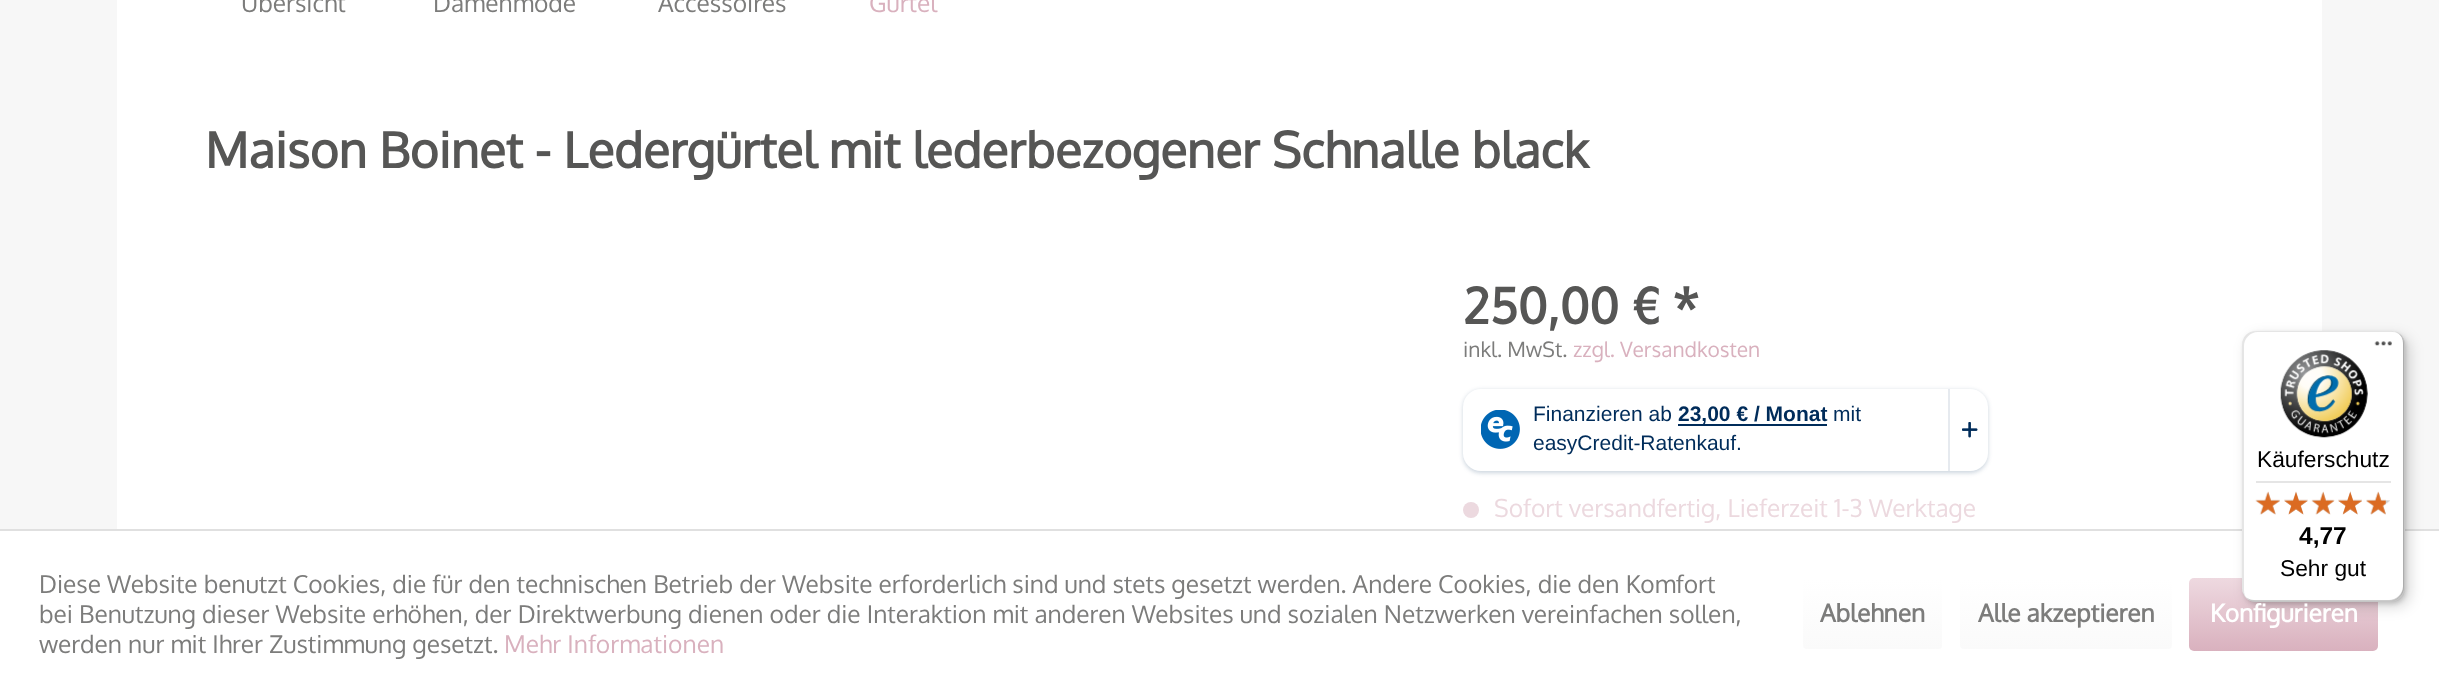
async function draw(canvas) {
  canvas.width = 2439
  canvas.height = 695
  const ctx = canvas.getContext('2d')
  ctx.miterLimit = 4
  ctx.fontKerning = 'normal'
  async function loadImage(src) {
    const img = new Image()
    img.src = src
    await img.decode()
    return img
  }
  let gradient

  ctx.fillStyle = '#f7f7f7'
  ctx.fillRect(0, 0, 2439, 695)
  ctx.fillStyle = '#fff'
  ctx.fillRect(117, 0, 2205, 529)
  ctx.font = '24.5px Oxygen'
  ctx.fillStyle = '#7c7c7b'
  ctx.fillText('Übersicht', 241, 12)
  ctx.fillText('Damenmode', 433, 12)
  ctx.fillText('Accessoires', 658, 12)
  ctx.fillStyle = '#d9b1be'
  ctx.fillText('Gürtel', 869, 12)
  ctx.font = 'bold 49px Oxygen'
  ctx.fillStyle = '#565655'
  ctx.fillText('Maison Boinet - Ledergürtel mit lederbezogener Schnalle black', 205, 168)
  ctx.fillText('250,00 € *', 1463, 324)
  ctx.font = '21px Oxygen'
  ctx.fillStyle = '#7c7c7b'
  ctx.fillText('inkl. MwSt.', 1463, 357)
  ctx.fillStyle = '#d9b1be'
  ctx.fillText('zzgl. Versandkosten', 1573, 357)
  ctx.fillStyle = '#002c5a33'
  ctx.filter = 'blur(2px)'
  ctx.beginPath()
  ctx.roundRect(1463, 390, 525, 83, 18)
  ctx.fill()
  ctx.filter = 'none'
  ctx.fillStyle = '#fff'
  ctx.beginPath()
  ctx.roundRect(1463, 389, 525, 82, 18)
  ctx.fill()
  ctx.drawImage(await loadImage('image0.png'), 1481, 410, 39, 39)
  ctx.font = '21px Liberation Sans'
  ctx.fillStyle = '#002c5a'
  ctx.fillText('Finanzieren ab', 1533, 421)
  ctx.fillRect(1678, 424, 149, 2)
  ctx.font = 'bold 21px Liberation Sans'
  ctx.fillText('23,00 € / Monat', 1678, 421)
  ctx.font = '21px Liberation Sans'
  ctx.fillText('mit', 1833, 421)
  ctx.fillText('easyCredit-Ratenkauf.', 1533, 450)
  ctx.fillStyle = '#e6eaef'
  ctx.fillRect(1948, 389, 2, 82)
  ctx.drawImage(await loadImage('image1.png'), 1962, 422, 16, 16)
  ctx.fillStyle = '#ecd9df'
  ctx.beginPath()
  ctx.arc(1471, 510, 8, 0, 2 * Math.PI)
  ctx.fill()
  ctx.font = '24.5px Oxygen'
  ctx.fillText('Sofort versandfertig, Lieferzeit 1-3 Werktage', 1494, 517)
  ctx.fillStyle = '#fff'
  ctx.fillRect(0, 531, 2439, 164)
  ctx.fillStyle = '#e0e0e0'
  ctx.fillRect(0, 529, 2439, 2)
  gradient = ctx.createLinearGradient(2284, 578, 2284, 651)
  gradient.addColorStop(0, '#eed9e0')
  gradient.addColorStop(1, '#d9b1be')
  ctx.fillStyle = gradient
  ctx.beginPath()
  ctx.roundRect(2189, 578, 189, 73, 5)
  ctx.fill()
  ctx.fillStyle = '#00000026'
  ctx.filter = 'blur(7px)'
  ctx.beginPath()
  ctx.roundRect(2247, 336, 163, 271, 14)
  ctx.fill()
  ctx.filter = 'none'
  ctx.filter = 'blur(2px)'
  ctx.beginPath()
  ctx.roundRect(2244, 333, 162, 271, 14)
  ctx.fill()
  ctx.filter = 'none'
  ctx.fillStyle = '#fff'
  ctx.beginPath()
  ctx.roundRect(2242, 331, 163, 271, 14)
  ctx.fill()
  ctx.fillStyle = '#0000001a'
  ctx.beginPath()
  ctx.moveTo(2258, 332)
  ctx.lineTo(2392, 332)
  ctx.bezierCurveTo(2396, 332, 2400, 334, 2402, 337)
  ctx.bezierCurveTo(2400, 333, 2396, 331, 2391, 331)
  ctx.lineTo(2256, 331)
  ctx.bezierCurveTo(2248, 331, 2242, 337, 2242, 345)
  ctx.lineTo(2242, 588)
  ctx.bezierCurveTo(2242, 593, 2244, 597, 2248, 599)
  ctx.bezierCurveTo(2245, 597, 2244, 593, 2244, 590)
  ctx.lineTo(2244, 346)
  ctx.bezierCurveTo(2244, 339, 2250, 332, 2258, 332)
  ctx.closePath()
  ctx.fill()
  ctx.fillStyle = '#00000033'
  ctx.beginPath()
  ctx.moveTo(2246, 597)
  ctx.bezierCurveTo(2248, 600, 2252, 602, 2256, 602)
  ctx.lineTo(2391, 602)
  ctx.bezierCurveTo(2399, 602, 2405, 596, 2405, 588)
  ctx.lineTo(2405, 345)
  ctx.bezierCurveTo(2405, 340, 2403, 336, 2399, 334)
  ctx.bezierCurveTo(2402, 336, 2403, 339, 2403, 343)
  ctx.lineTo(2403, 586)
  ctx.bezierCurveTo(2403, 594, 2396, 600, 2389, 600)
  ctx.lineTo(2254, 600)
  ctx.bezierCurveTo(2251, 600, 2248, 599, 2246, 597)
  ctx.closePath()
  ctx.fill()
  ctx.fillStyle = '#32323233'
  ctx.beginPath()
  ctx.moveTo(2247, 598)
  ctx.bezierCurveTo(2249, 601, 2252, 602, 2256, 602)
  ctx.lineTo(2391, 602)
  ctx.bezierCurveTo(2399, 602, 2405, 596, 2405, 588)
  ctx.lineTo(2405, 345)
  ctx.bezierCurveTo(2405, 339, 2402, 335, 2397, 332)
  ctx.bezierCurveTo(2401, 335, 2403, 339, 2403, 344)
  ctx.lineTo(2403, 587)
  ctx.bezierCurveTo(2403, 595, 2397, 601, 2389, 601)
  ctx.lineTo(2255, 601)
  ctx.bezierCurveTo(2252, 601, 2249, 600, 2247, 598)
  ctx.closePath()
  ctx.fill()
  ctx.fillStyle = '#ffffff4d'
  ctx.beginPath()
  ctx.moveTo(2247, 598)
  ctx.bezierCurveTo(2249, 601, 2252, 602, 2256, 602)
  ctx.lineTo(2391, 602)
  ctx.bezierCurveTo(2399, 602, 2405, 596, 2405, 588)
  ctx.lineTo(2405, 345)
  ctx.bezierCurveTo(2405, 340, 2403, 336, 2399, 334)
  ctx.bezierCurveTo(2402, 336, 2404, 340, 2404, 344)
  ctx.lineTo(2404, 587)
  ctx.bezierCurveTo(2404, 595, 2397, 601, 2390, 601)
  ctx.lineTo(2255, 601)
  ctx.bezierCurveTo(2252, 601, 2249, 600, 2247, 598)
  ctx.closePath()
  ctx.fill()
  ctx.drawImage(await loadImage('image2.png'), 2374, 341, 18, 5)
  ctx.drawImage(await loadImage('image3.png'), 2280, 350, 88, 88)
  ctx.font = '22.75px Liberation Sans'
  ctx.fillStyle = '#000'
  ctx.fillText('Käuferschutz', 2257, 467)
  ctx.fillStyle = '#e5e5e5'
  ctx.fillRect(2256, 481, 135, 2)
  ctx.drawImage(await loadImage('image4.png'), 2255, 492, 25, 23)
  ctx.drawImage(await loadImage('image5.png'), 2284, 492, 24, 23)
  ctx.drawImage(await loadImage('image6.png'), 2312, 492, 23, 23)
  ctx.drawImage(await loadImage('image7.png'), 2338, 491, 24, 24)
  ctx.drawImage(await loadImage('image8.png'), 2366, 492, 24, 23)
  ctx.drawImage(await loadImage('image9.png'), 2255, 491, 25, 24)
  ctx.drawImage(await loadImage('image10.png'), 2284, 491, 24, 24)
  ctx.drawImage(await loadImage('image11.png'), 2311, 491, 24, 24)
  ctx.drawImage(await loadImage('image12.png'), 2338, 491, 24, 24)
  ctx.drawImage(await loadImage('image13.png'), 2366, 491, 20, 24)
  ctx.font = 'bold 24.5px Liberation Sans'
  ctx.fillStyle = '#000'
  ctx.fillText('4,77', 2299, 544)
  ctx.font = '22.75px Liberation Sans'
  ctx.fillText('Sehr gut', 2280, 576)
  ctx.font = '24.5px Oxygen'
  ctx.fillStyle = '#7c7c7b'
  ctx.fillText('Diese Website benutzt Cookies, die für den technischen Betrieb der Website erforderlich sind und stets gesetzt werden. Andere Cookies, die den Komfort', 39, 593)
  ctx.fillText('bei Benutzung dieser Website erhöhen, der Direktwerbung dienen oder die Interaktion mit anderen Websites und sozialen Netzwerken vereinfachen sollen,', 39, 623)
  ctx.fillText('werden nur mit Ihrer Zustimmung gesetzt.', 39, 653)
  ctx.fillStyle = '#d9b1be'
  ctx.fillText('Mehr Informationen', 504, 653)
  gradient = ctx.createLinearGradient(1873, 579, 1873, 649)
  gradient.addColorStop(0, '#fff')
  gradient.addColorStop(1, '#fafafa')
  ctx.fillStyle = gradient
  ctx.beginPath()
  ctx.roundRect(1803, 579, 140, 70, 4)
  ctx.fill()
  ctx.beginPath()
  ctx.roundRect(1802, 579, 141, 71, 4)
  ctx.strokeStyle = '#fff'
  ctx.lineWidth = 2
  ctx.stroke()
  ctx.font = 'bold 24.5px Oxygen'
  ctx.fillStyle = '#7c7c7b'
  ctx.fillText('Ablehnen', 1820, 622)
  gradient = ctx.createLinearGradient(2066, 579, 2066, 649)
  gradient.addColorStop(0, '#fff')
  gradient.addColorStop(1, '#fafafa')
  ctx.fillStyle = gradient
  ctx.beginPath()
  ctx.roundRect(1960, 579, 212, 70, 4)
  ctx.fill()
  ctx.fillStyle = '#7c7c7b'
  ctx.fillText('Alle akzeptieren', 1978, 622)
  ctx.fillStyle = '#fff'
  ctx.fillText('Konfigurieren', 2210, 622)
}

draw(document.querySelector('canvas'))
